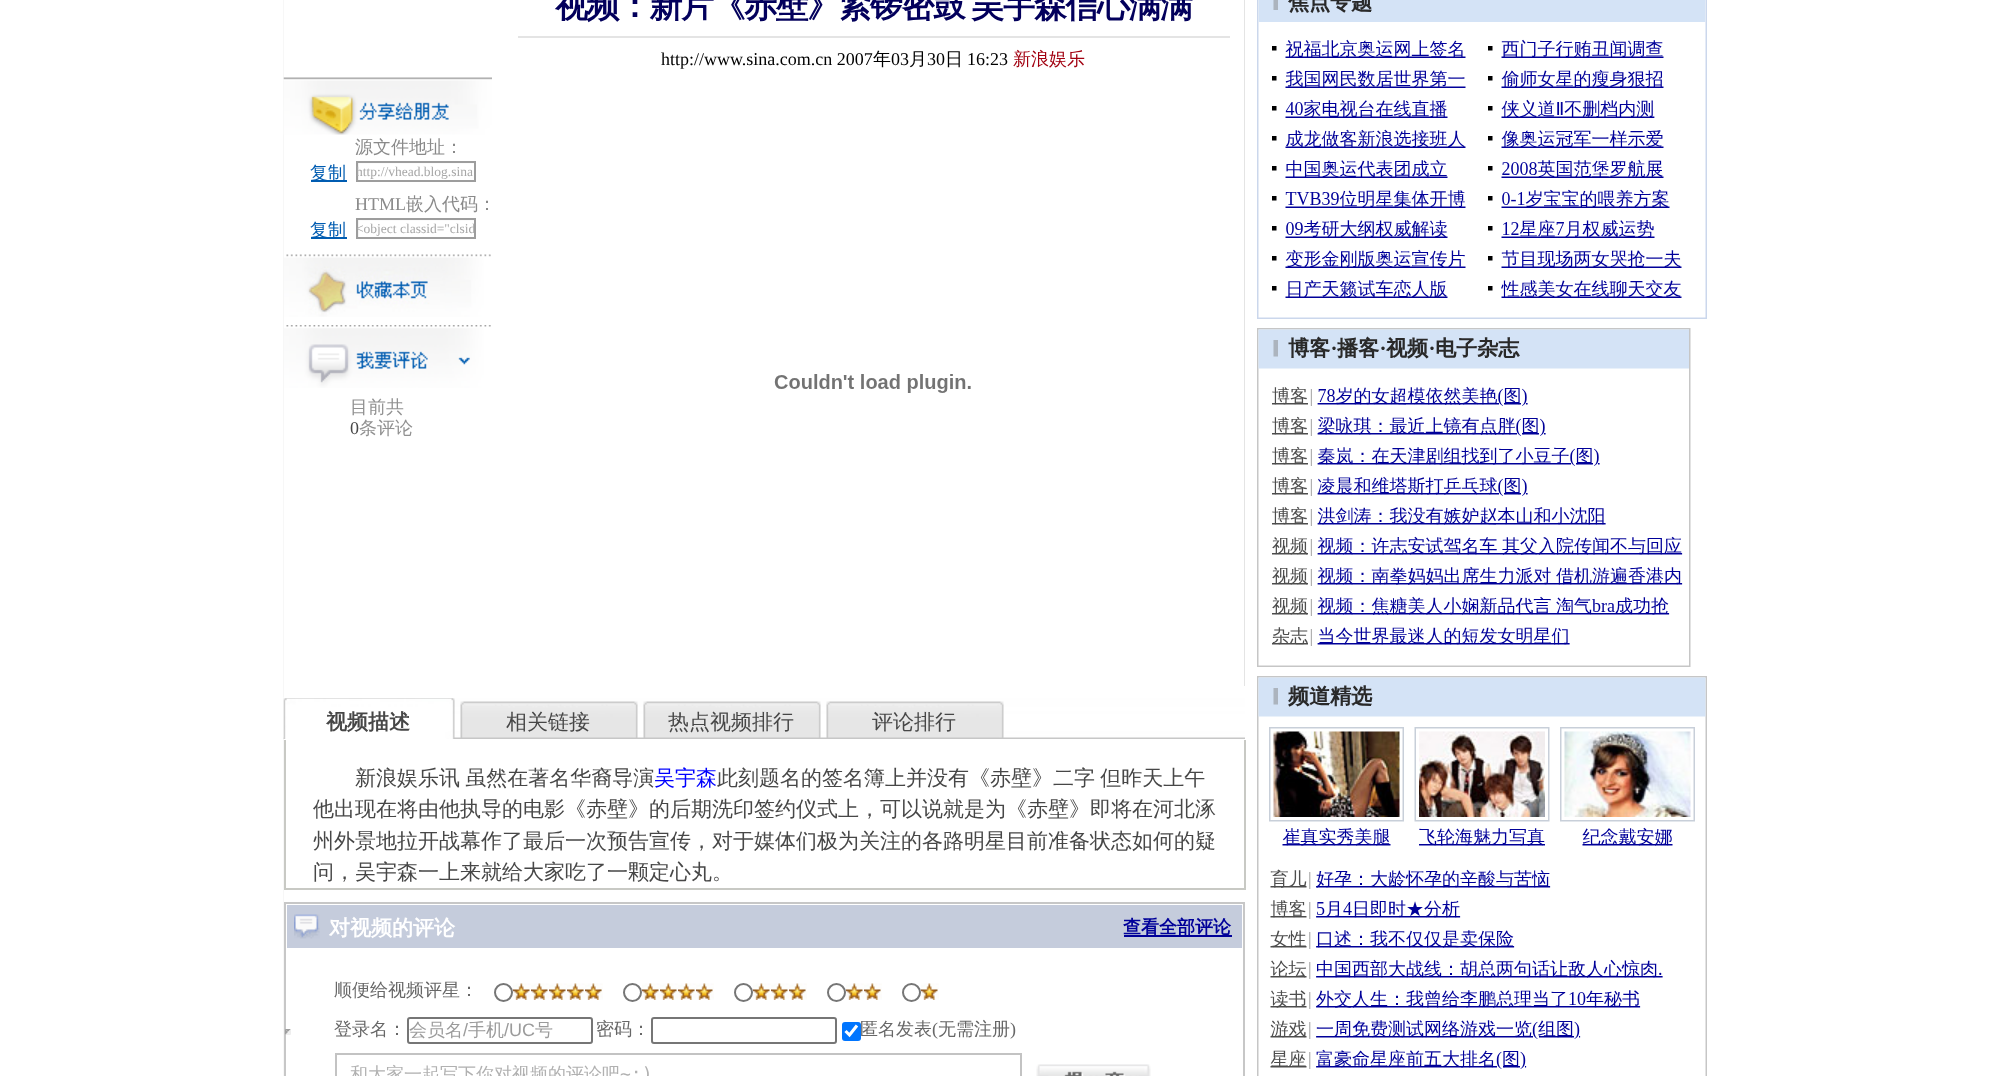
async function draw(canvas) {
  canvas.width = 1990
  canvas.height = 1076
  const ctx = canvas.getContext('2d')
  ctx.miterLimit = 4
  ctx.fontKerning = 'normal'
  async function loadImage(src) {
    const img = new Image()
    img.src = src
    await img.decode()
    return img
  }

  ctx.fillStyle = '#fff'
  ctx.fillRect(0, 0, 1990, 1076)
  ctx.drawImage(await loadImage('image0.png'), 283, 0, 962, 1076)
  ctx.fillRect(284, 0, 960, 686)
  ctx.fillStyle = '#e4e4e4'
  ctx.fillRect(518, 36, 712, 2)
  ctx.letterSpacing = '-1.5px'
  ctx.wordSpacing = '-2px'
  ctx.font = 'bold 33px WenQuanYi Zen Hei'
  ctx.fillStyle = '#03005c'
  ctx.fillText('视频：新片《赤壁》紧锣密鼓 吴宇森信心满满', 555, 17)
  ctx.letterSpacing = '0px'
  ctx.wordSpacing = '0px'
  ctx.font = '18px Liberation Serif'
  ctx.fillStyle = '#000'
  ctx.fillText('http://www.sina.com.cn 2007', 661, 65)
  ctx.font = '500 18px WenQuanYi Zen Hei'
  ctx.fillText('年', 873, 65)
  ctx.font = '18px Liberation Serif'
  ctx.fillText('03', 891, 65)
  ctx.font = '500 18px WenQuanYi Zen Hei'
  ctx.fillText('月', 909, 65)
  ctx.font = '18px Liberation Serif'
  ctx.fillText('30', 927, 65)
  ctx.font = '500 18px WenQuanYi Zen Hei'
  ctx.fillText('日', 945, 65)
  ctx.font = '18px Liberation Serif'
  ctx.fillText('16:23', 967, 65)
  ctx.font = '500 18px WenQuanYi Zen Hei'
  ctx.fillStyle = '#a20010'
  ctx.fillText('新浪娱乐', 1013, 65)
  ctx.drawImage(await loadImage('image1.png'), 774, 374, 197, 19)
  ctx.drawImage(await loadImage('image2.png'), 283, 77, 209, 58)
  ctx.fillStyle = '#8a8a8a'
  ctx.fillText('源文件地址：', 355, 153)
  ctx.fillStyle = '#005cb1'
  ctx.fillRect(311, 180, 36, 2)
  ctx.fillText('复制', 310, 179)
  ctx.drawImage(await loadImage('image3.png'), 358, 163, 116, 17)
  ctx.strokeStyle = '#9d9d9d'
  ctx.lineWidth = 2
  ctx.strokeRect(357, 162, 118, 19)
  ctx.font = '13.5px Liberation Serif'
  ctx.fillStyle = '#a7a7a7'
  ctx.fillText('http://vhead.blog.sina', 356, 176)
  ctx.font = '18px Liberation Serif'
  ctx.fillStyle = '#8a8a8a'
  ctx.fillText('HTML', 355, 210)
  ctx.font = '500 18px WenQuanYi Zen Hei'
  ctx.fillText('嵌入代码：', 406, 210)
  ctx.fillStyle = '#005cb1'
  ctx.fillRect(311, 237, 36, 2)
  ctx.fillText('复制', 310, 236)
  ctx.drawImage(await loadImage('image3.png'), 358, 220, 116, 17)
  ctx.strokeRect(357, 219, 118, 19)
  ctx.save()
  ctx.beginPath()
  ctx.rect(357, 219, 117, 18)
  ctx.clip()
  ctx.font = '13.5px Liberation Serif'
  ctx.fillStyle = '#a7a7a7'
  ctx.fillText('<object classid="clsid', 356, 233)
  ctx.restore()
  ctx.drawImage(await loadImage('image4.png'), 284, 254, 207, 63)
  ctx.drawImage(await loadImage('image5.png'), 284, 325, 207, 63)
  ctx.fillStyle = '#919191'
  ctx.fillText('目前共', 350, 413)
  ctx.font = '18px Liberation Serif'
  ctx.fillStyle = '#474747'
  ctx.fillText('0', 350, 434)
  ctx.font = '500 18px WenQuanYi Zen Hei'
  ctx.fillStyle = '#919191'
  ctx.fillText('条评论', 359, 434)
  ctx.drawImage(await loadImage('image6.png'), 283, 697, 962, 42)
  ctx.drawImage(await loadImage('image7.png'), 283, 697, 172, 42)
  ctx.fillStyle = '#fff'
  ctx.fillRect(284, 686, 961, 12)
  ctx.fillRect(284, 739, 961, 149)
  ctx.font = 'bold 21px WenQuanYi Zen Hei'
  ctx.fillStyle = '#474747'
  ctx.fillText('视频描述', 326, 729)
  ctx.drawImage(await loadImage('image8.png'), 460, 701, 178, 37)
  ctx.font = '500 21px WenQuanYi Zen Hei'
  ctx.fillText('相关链接', 506, 729)
  ctx.drawImage(await loadImage('image9.png'), 643, 701, 178, 37)
  ctx.fillText('热点视频排行', 668, 729)
  ctx.drawImage(await loadImage('image8.png'), 826, 701, 178, 37)
  ctx.fillText('评论排行', 872, 729)
  ctx.fillStyle = '#c8c9c4'
  ctx.fillRect(1244, 740, 2, 150)
  ctx.fillRect(284, 888, 961, 2)
  ctx.fillRect(284, 740, 2, 150)
  ctx.wordSpacing = '-1px'
  ctx.fillStyle = '#474747'
  ctx.fillText('新浪娱乐讯 虽然在著名华裔导演', 355, 785)
  ctx.wordSpacing = '0px'
  ctx.fillStyle = '#00f'
  ctx.fillText('吴宇森', 654, 785)
  ctx.wordSpacing = '-1px'
  ctx.fillStyle = '#474747'
  ctx.fillText('此刻题名的签名簿上并没有《赤壁》二字 但昨天上午', 717, 785)
  ctx.wordSpacing = '0px'
  ctx.fillText('他出现在将由他执导的电影《赤壁》的后期洗印签约仪式上，可以说就是为《赤壁》即将在河北涿', 313, 816)
  ctx.fillText('州外景地拉开战幕作了最后一次预告宣传，对于媒体们极为关注的各路明星目前准备状态如何的疑', 313, 848)
  ctx.fillText('问，吴宇森一上来就给大家吃了一颗定心丸。', 313, 879)
  ctx.fillStyle = '#fff'
  ctx.fillRect(284, 890, 961, 12)
  ctx.fillRect(1241, 904, 2, 172)
  ctx.strokeStyle = '#c7c7c7'
  ctx.strokeRect(285, 903, 959, 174)
  ctx.fillStyle = '#c5ccdc'
  ctx.fillRect(287, 905, 955, 43)
  ctx.drawImage(await loadImage('image10.png'), 294, 914, 26, 25)
  ctx.font = 'bold 21px WenQuanYi Zen Hei'
  ctx.fillStyle = '#fff'
  ctx.fillText('对视频的评论', 329, 935)
  ctx.fillStyle = '#009'
  ctx.fillRect(1124, 935, 108, 2)
  ctx.font = 'bold 18px WenQuanYi Zen Hei'
  ctx.fillText('查看全部评论', 1123, 933)
  ctx.fillStyle = '#9f9f9f'
  ctx.beginPath()
  ctx.moveTo(285, 1029)
  ctx.lineTo(291, 1029)
  ctx.lineTo(288, 1032)
  ctx.closePath()
  ctx.fill()
  ctx.font = '500 18px WenQuanYi Zen Hei'
  ctx.fillStyle = '#676767'
  ctx.fillText('顺便给视频评星：', 334, 996)
  ctx.beginPath()
  ctx.arc(503.5, 992.5, 8.5, 0, 2 * Math.PI)
  ctx.strokeStyle = '#767676'
  ctx.stroke()
  ctx.drawImage(await loadImage('image11.png'), 513, 983, 18, 17)
  ctx.drawImage(await loadImage('image12.png'), 531, 983, 18, 17)
  ctx.drawImage(await loadImage('image13.png'), 549, 983, 18, 17)
  ctx.drawImage(await loadImage('image14.png'), 567, 983, 18, 17)
  ctx.drawImage(await loadImage('image14.png'), 585, 983, 18, 17)
  ctx.beginPath()
  ctx.arc(632.5, 992.5, 8.5, 0, 2 * Math.PI)
  ctx.stroke()
  ctx.drawImage(await loadImage('image13.png'), 642, 983, 18, 17)
  ctx.drawImage(await loadImage('image13.png'), 660, 983, 18, 17)
  ctx.drawImage(await loadImage('image13.png'), 678, 983, 18, 17)
  ctx.drawImage(await loadImage('image13.png'), 696, 983, 18, 17)
  ctx.beginPath()
  ctx.arc(743.5, 992.5, 8.5, 0, 2 * Math.PI)
  ctx.stroke()
  ctx.drawImage(await loadImage('image15.png'), 753, 983, 18, 17)
  ctx.drawImage(await loadImage('image13.png'), 771, 983, 18, 17)
  ctx.drawImage(await loadImage('image13.png'), 789, 983, 18, 17)
  ctx.beginPath()
  ctx.arc(836.5, 992.5, 8.5, 0, 2 * Math.PI)
  ctx.stroke()
  ctx.drawImage(await loadImage('image13.png'), 846, 983, 18, 17)
  ctx.drawImage(await loadImage('image13.png'), 864, 983, 18, 17)
  ctx.beginPath()
  ctx.arc(911.5, 992.5, 8.5, 0, 2 * Math.PI)
  ctx.stroke()
  ctx.drawImage(await loadImage('image13.png'), 921, 983, 18, 17)
  ctx.fillText('登录名：', 334, 1035)
  ctx.beginPath()
  ctx.roundRect(408, 1018, 184, 25, 2)
  ctx.stroke()
  ctx.fillStyle = '#9b9b9b'
  ctx.fillText('会员名', 409, 1036)
  ctx.font = '18px Liberation Sans'
  ctx.fillText('/', 463, 1036)
  ctx.font = '500 18px WenQuanYi Zen Hei'
  ctx.fillText('手机', 468, 1036)
  ctx.font = '18px Liberation Sans'
  ctx.fillText('/UC', 504, 1036)
  ctx.font = '500 18px WenQuanYi Zen Hei'
  ctx.fillText('号', 535, 1036)
  ctx.fillStyle = '#676767'
  ctx.fillText('密码：', 596, 1035)
  ctx.beginPath()
  ctx.roundRect(652, 1018, 184, 25, 2)
  ctx.stroke()
  ctx.fillStyle = '#0075ff'
  ctx.beginPath()
  ctx.roundRect(842, 1022, 19, 19, 3)
  ctx.fill()
  ctx.beginPath()
  ctx.moveTo(845.5, 1031)
  ctx.lineTo(849.5, 1035)
  ctx.lineTo(857, 1025.5)
  ctx.strokeStyle = '#fff'
  ctx.lineWidth = 3.1
  ctx.stroke()
  ctx.fillStyle = '#676767'
  ctx.fillText('匿名发表', 860, 1035)
  ctx.font = '18px Liberation Serif'
  ctx.fillText('(', 932, 1035)
  ctx.font = '500 18px WenQuanYi Zen Hei'
  ctx.fillText('无需注册', 938, 1035)
  ctx.font = '18px Liberation Serif'
  ctx.fillText(')', 1010, 1035)
  ctx.strokeStyle = '#c3c3c3'
  ctx.lineWidth = 2
  ctx.strokeRect(336, 1054, 685, 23)
  ctx.font = '500 18px WenQuanYi Zen Hei'
  ctx.fillStyle = '#b1b1b1'
  ctx.fillText('和大家一起写下你对视频的评论吧', 350, 1080)
  ctx.font = '18px DejaVu Sans Mono'
  ctx.fillText('~:)', 620, 1080)
  ctx.drawImage(await loadImage('image16.png'), 1036, 1064, 115, 12)
  ctx.fillStyle = '#eee'
  ctx.beginPath()
  ctx.moveTo(291, 1029)
  ctx.lineTo(291, 1035)
  ctx.lineTo(288, 1032)
  ctx.closePath()
  ctx.fill()
  ctx.beginPath()
  ctx.moveTo(291, 1035)
  ctx.lineTo(285, 1035)
  ctx.lineTo(288, 1032)
  ctx.closePath()
  ctx.fill()
  ctx.fillStyle = '#9f9f9f'
  ctx.beginPath()
  ctx.moveTo(285, 1035)
  ctx.lineTo(285, 1029)
  ctx.lineTo(288, 1032)
  ctx.closePath()
  ctx.fill()
  ctx.drawImage(await loadImage('image17.png'), 1257, 0, 450, 319)
  ctx.drawImage(await loadImage('image18.png'), 1257, 328, 434, 339)
  ctx.drawImage(await loadImage('image19.png'), 1257, 676, 450, 400)
}

draw(document.querySelector('canvas'))
